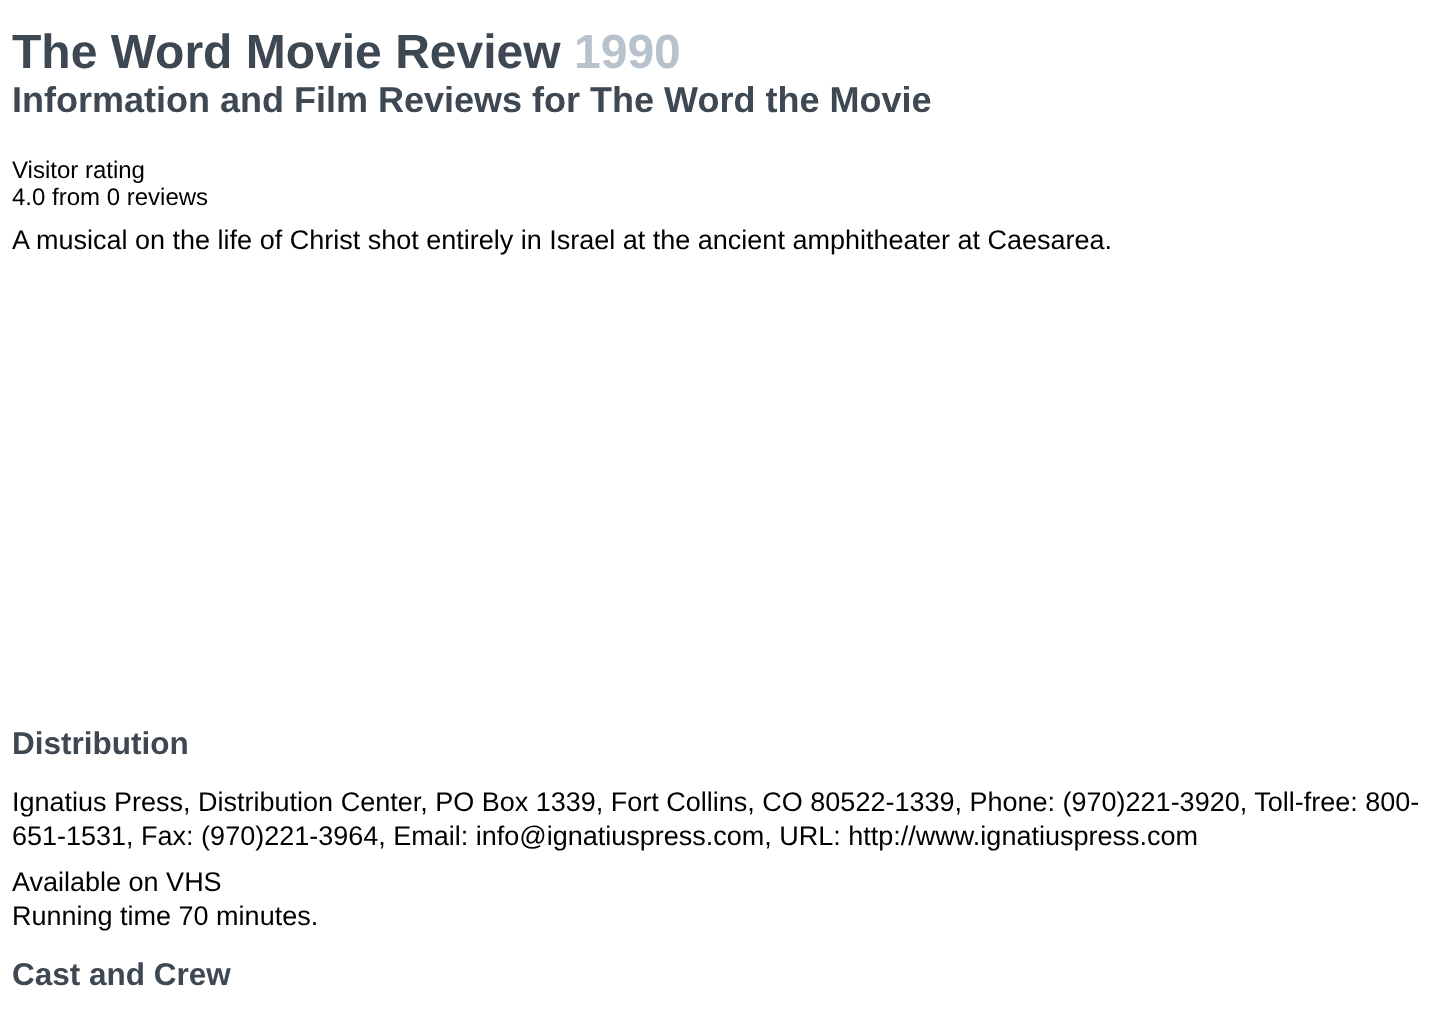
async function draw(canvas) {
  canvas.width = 1450
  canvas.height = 1023
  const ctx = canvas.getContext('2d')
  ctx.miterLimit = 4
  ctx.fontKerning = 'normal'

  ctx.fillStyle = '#fff'
  ctx.fillRect(0, 0, 1450, 1023)
  ctx.font = 'bold 48px Liberation Sans'
  ctx.fillStyle = '#3d4852'
  ctx.fillText('The Word Movie Review', 12, 68)
  ctx.fillStyle = '#b8c2cc'
  ctx.fillText('1990', 574, 68)
  ctx.font = 'bold 36px Liberation Sans'
  ctx.fillStyle = '#3d4852'
  ctx.fillText('Information and Film Reviews for The Word the Movie', 12, 112)
  ctx.font = '24px Liberation Sans'
  ctx.fillStyle = '#000'
  ctx.fillText('Visitor rating', 12, 178)
  ctx.fillText('4.0 from 0 reviews', 12, 205)
  ctx.font = '27px Liberation Sans'
  ctx.fillText('A musical on the life of Christ shot entirely in Israel at the ancient amphitheater at Caesarea.', 12, 249)
  ctx.font = 'bold 31.5px Liberation Sans'
  ctx.fillStyle = '#3d4852'
  ctx.fillText('Distribution', 12, 754)
  ctx.font = '27px Liberation Sans'
  ctx.fillStyle = '#000'
  ctx.fillText('Ignatius Press, Distribution Center, PO Box 1339, Fort Collins, CO 80522-1339, Phone: (970)221-3920, Toll-free: 800-', 12, 811)
  ctx.fillText('651-1531, Fax: (970)221-3964, Email: info@ignatiuspress.com, URL: http://www.ignatiuspress.com', 12, 845)
  ctx.fillText('Available on VHS', 12, 891)
  ctx.fillText('Running time 70 minutes.', 12, 925)
  ctx.font = 'bold 31.5px Liberation Sans'
  ctx.fillStyle = '#3d4852'
  ctx.fillText('Cast and Crew', 12, 985)
}

draw(document.querySelector('canvas'))
